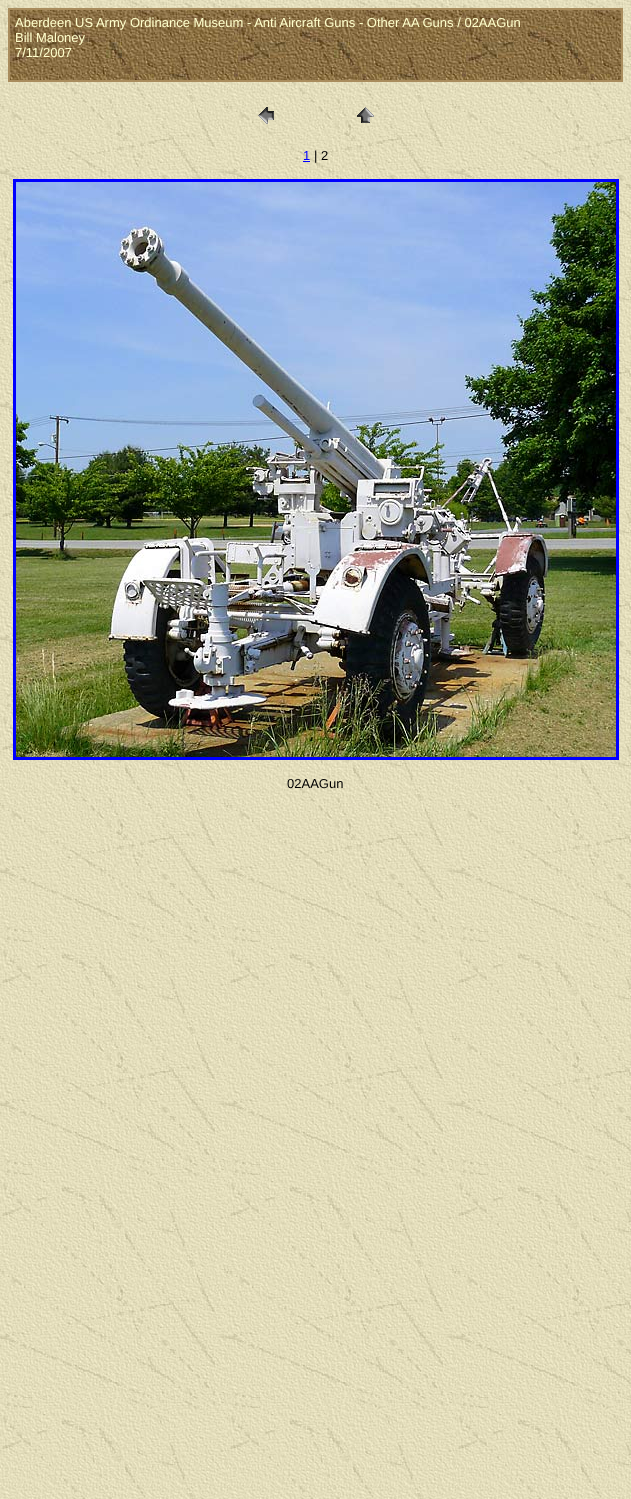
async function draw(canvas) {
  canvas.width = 631
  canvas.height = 1499
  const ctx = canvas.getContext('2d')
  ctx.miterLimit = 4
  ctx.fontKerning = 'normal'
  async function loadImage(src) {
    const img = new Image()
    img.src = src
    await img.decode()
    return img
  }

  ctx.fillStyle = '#fff'
  ctx.fillRect(0, 0, 631, 1499)
  ctx.drawImage(await loadImage('image0.png'), 0, 0, 631, 1499)
  ctx.fillStyle = '#a98c5d'
  ctx.fillRect(8, 8, 615, 74)
  ctx.drawImage(await loadImage('image1.png'), 10, 10, 611, 70)
  ctx.font = '13px Liberation Sans'
  ctx.fillStyle = '#ffc'
  ctx.fillText('Aberdeen US Army Ordinance Museum - Anti Aircraft Guns - Other AA Guns / 02AAGun', 15, 27)
  ctx.fillText('Bill Maloney', 15, 42)
  ctx.fillText('7/11/2007', 15, 57)
  ctx.drawImage(await loadImage('image2.png'), 258, 107, 16, 17)
  ctx.drawImage(await loadImage('image3.png'), 357, 107, 17, 16)
  ctx.fillStyle = '#00f'
  ctx.fillText('1', 303, 160)
  ctx.fillRect(303, 161, 7, 1)
  ctx.fillStyle = '#000'
  ctx.fillText('| 2', 314, 160)
  ctx.strokeStyle = '#00f'
  ctx.lineWidth = 3
  ctx.strokeRect(14.5, 180.5, 603, 578)
  ctx.drawImage(await loadImage('image4.png'), 16, 182, 600, 575)
  ctx.fillText('02AAGun', 287, 788)
}

draw(document.querySelector('canvas'))
